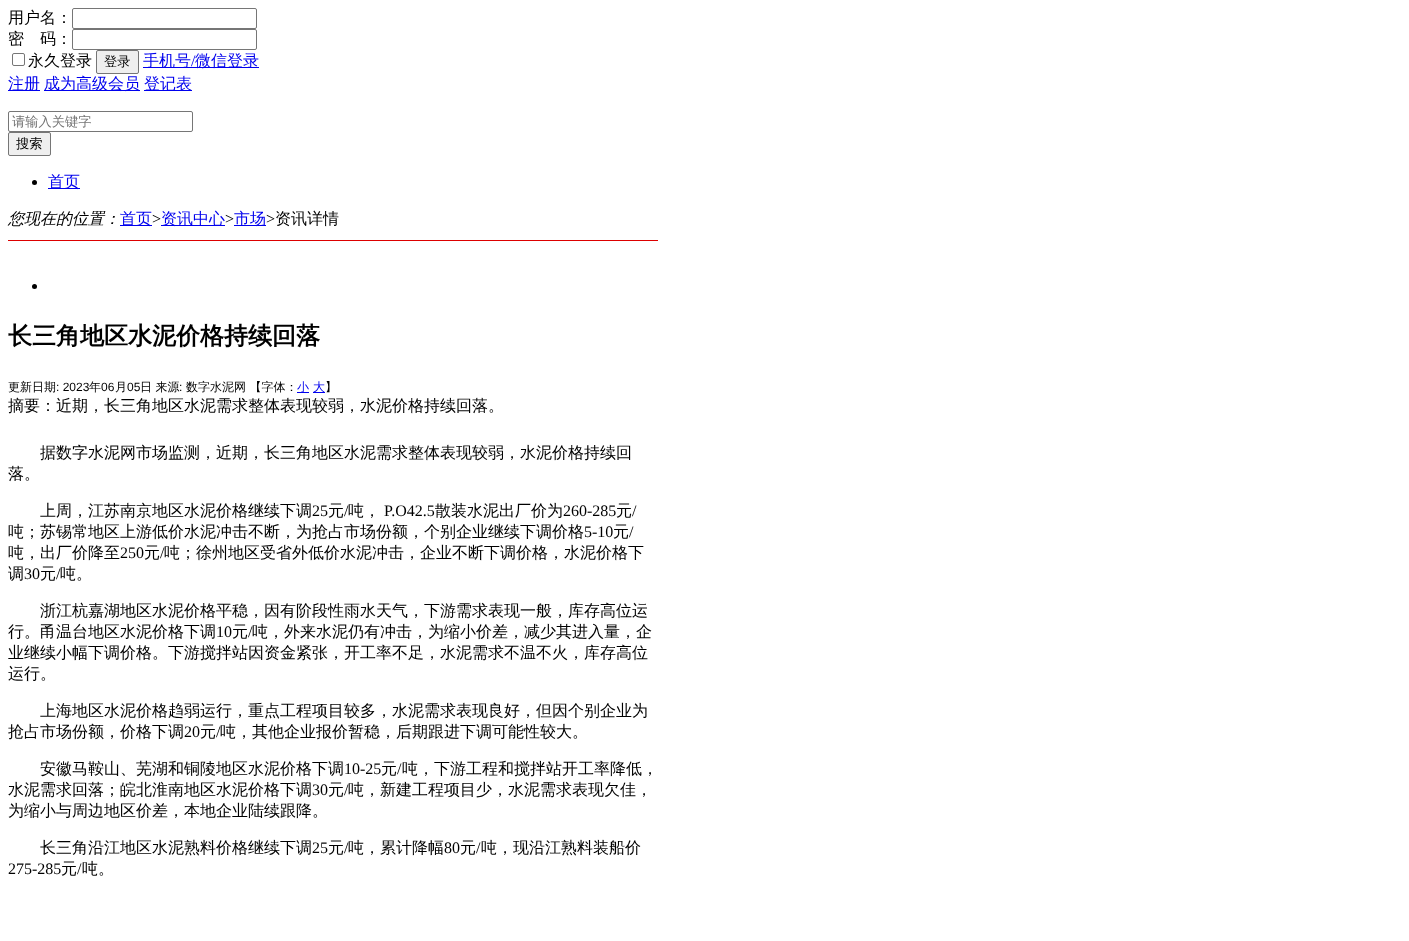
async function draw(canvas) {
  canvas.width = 1409
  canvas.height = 941
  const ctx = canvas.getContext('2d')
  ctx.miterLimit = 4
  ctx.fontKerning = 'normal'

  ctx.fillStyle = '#fff'
  ctx.fillRect(0, 0, 1409, 941)
  ctx.font = '500 16px WenQuanYi Zen Hei'
  ctx.fillStyle = '#000'
  ctx.fillText('用户名：', 8, 23)
  ctx.beginPath()
  ctx.roundRect(72.5, 8.5, 184, 20, 1.5)
  ctx.strokeStyle = '#767676'
  ctx.stroke()
  ctx.fillText('密　码：', 8, 44)
  ctx.beginPath()
  ctx.roundRect(72.5, 29.5, 184, 20, 1.5)
  ctx.stroke()
  ctx.beginPath()
  ctx.roundRect(12.5, 53.5, 12, 12, 1.5)
  ctx.stroke()
  ctx.fillText('永久登录', 28, 66)
  ctx.fillStyle = '#efefef'
  ctx.beginPath()
  ctx.roundRect(96.5, 50.5, 42, 23, 1.5)
  ctx.fill()
  ctx.stroke()
  ctx.font = '500 13.25px WenQuanYi Zen Hei'
  ctx.fillStyle = '#000'
  ctx.fillText('登录', 104, 66)
  ctx.fillStyle = '#00e'
  ctx.fillRect(143, 67, 116, 1)
  ctx.font = '500 16px WenQuanYi Zen Hei'
  ctx.fillText('手机号', 143, 66)
  ctx.font = '16px Liberation Serif'
  ctx.fillText('/', 191, 66)
  ctx.font = '500 16px WenQuanYi Zen Hei'
  ctx.fillText('微信登录', 195, 66)
  ctx.fillRect(8, 90, 32, 1)
  ctx.fillText('注册', 8, 89)
  ctx.fillRect(44, 90, 96, 1)
  ctx.fillText('成为高级会员', 44, 89)
  ctx.fillRect(144, 90, 48, 1)
  ctx.fillText('登记表', 144, 89)
  ctx.beginPath()
  ctx.roundRect(8.5, 111.5, 184, 20, 1.5)
  ctx.stroke()
  ctx.font = '500 13.25px WenQuanYi Zen Hei'
  ctx.fillStyle = '#757575'
  ctx.fillText('请输入关键字', 12, 126)
  ctx.fillStyle = '#efefef'
  ctx.beginPath()
  ctx.roundRect(8.5, 132.5, 42, 23, 1.5)
  ctx.fill()
  ctx.stroke()
  ctx.fillStyle = '#000'
  ctx.fillText('搜索', 16, 148)
  ctx.beginPath()
  ctx.arc(34.5, 182.5, 2.5, 0, 2 * Math.PI)
  ctx.fill()
  ctx.fillStyle = '#00e'
  ctx.fillRect(48, 188, 32, 1)
  ctx.font = '500 16px WenQuanYi Zen Hei'
  ctx.fillText('首页', 48, 187)
  ctx.font = 'italic 500 16px WenQuanYi Zen Hei'
  ctx.fillStyle = '#000'
  ctx.fillText('您现在的位置：', 8, 224)
  ctx.fillStyle = '#00e'
  ctx.fillRect(120, 225, 32, 1)
  ctx.font = '500 16px WenQuanYi Zen Hei'
  ctx.fillText('首页', 120, 224)
  ctx.font = '16px Liberation Serif'
  ctx.fillStyle = '#000'
  ctx.fillText('>', 152, 224)
  ctx.fillStyle = '#00e'
  ctx.fillRect(161, 225, 64, 1)
  ctx.font = '500 16px WenQuanYi Zen Hei'
  ctx.fillText('资讯中心', 161, 224)
  ctx.font = '16px Liberation Serif'
  ctx.fillStyle = '#000'
  ctx.fillText('>', 225, 224)
  ctx.fillStyle = '#00e'
  ctx.fillRect(234, 225, 32, 1)
  ctx.font = '500 16px WenQuanYi Zen Hei'
  ctx.fillText('市场', 234, 224)
  ctx.font = '16px Liberation Serif'
  ctx.fillStyle = '#000'
  ctx.fillText('>', 266, 224)
  ctx.font = '500 16px WenQuanYi Zen Hei'
  ctx.fillText('资讯详情', 275, 224)
  ctx.fillStyle = '#d00'
  ctx.fillRect(8, 240, 650, 1)
  ctx.fillStyle = '#000'
  ctx.beginPath()
  ctx.arc(34.5, 286.5, 2.5, 0, 2 * Math.PI)
  ctx.fill()
  ctx.font = 'bold 24px WenQuanYi Zen Hei'
  ctx.fillText('长三角地区水泥价格持续回落', 8, 344)
  ctx.font = '500 12px WenQuanYi Zen Hei'
  ctx.fillText('更新日期', 8, 391)
  ctx.font = '12px Liberation Sans'
  ctx.fillText(': 2023', 56, 391)
  ctx.font = '500 12px WenQuanYi Zen Hei'
  ctx.fillText('年', 89, 391)
  ctx.font = '12px Liberation Sans'
  ctx.fillText('06', 101, 391)
  ctx.font = '500 12px WenQuanYi Zen Hei'
  ctx.fillText('月', 115, 391)
  ctx.font = '12px Liberation Sans'
  ctx.fillText('05', 127, 391)
  ctx.font = '500 12px WenQuanYi Zen Hei'
  ctx.fillText('日 来源', 140, 391)
  ctx.font = '12px Liberation Sans'
  ctx.fillText(':', 179, 391)
  ctx.font = '500 12px WenQuanYi Zen Hei'
  ctx.fillText('数字水泥网 【字体：', 186, 391)
  ctx.fillStyle = '#00e'
  ctx.fillRect(297, 392, 12, 1)
  ctx.fillText('小', 297, 391)
  ctx.fillRect(313, 392, 12, 1)
  ctx.fillText('大', 313, 391)
  ctx.fillStyle = '#000'
  ctx.fillText('】', 325, 391)
  ctx.font = '500 16px WenQuanYi Zen Hei'
  ctx.fillText('摘要：近期，长三角地区水泥需求整体表现较弱，水泥价格持续回落。', 8, 411)
  ctx.fillText('据数字水泥网市场监测，近期，长三角地区水泥需求整体表现较弱，水泥价格持续回', 40, 458)
  ctx.fillText('落。', 8, 479)
  ctx.fillText('上周，江苏南京地区水泥价格继续下调', 40, 516)
  ctx.font = '16px Liberation Serif'
  ctx.fillText('25', 312, 516)
  ctx.font = '500 16px WenQuanYi Zen Hei'
  ctx.fillText('元', 328, 516)
  ctx.font = '16px Liberation Serif'
  ctx.fillText('/', 344, 516)
  ctx.font = '500 16px WenQuanYi Zen Hei'
  ctx.fillText('吨，', 348, 516)
  ctx.font = '16px Liberation Serif'
  ctx.fillText('P.O42.5', 384, 516)
  ctx.font = '500 16px WenQuanYi Zen Hei'
  ctx.fillText('散装水泥出厂价为', 435, 516)
  ctx.font = '16px Liberation Serif'
  ctx.fillText('260-285', 563, 516)
  ctx.font = '500 16px WenQuanYi Zen Hei'
  ctx.fillText('元', 616, 516)
  ctx.font = '16px Liberation Serif'
  ctx.fillText('/', 632, 516)
  ctx.font = '500 16px WenQuanYi Zen Hei'
  ctx.fillText('吨；苏锡常地区上游低价水泥冲击不断，为抢占市场份额，个别企业继续下调价格', 8, 537)
  ctx.font = '16px Liberation Serif'
  ctx.fillText('5-10', 584, 537)
  ctx.font = '500 16px WenQuanYi Zen Hei'
  ctx.fillText('元', 613, 537)
  ctx.font = '16px Liberation Serif'
  ctx.fillText('/', 629, 537)
  ctx.font = '500 16px WenQuanYi Zen Hei'
  ctx.fillText('吨，出厂价降至', 8, 558)
  ctx.font = '16px Liberation Serif'
  ctx.fillText('250', 120, 558)
  ctx.font = '500 16px WenQuanYi Zen Hei'
  ctx.fillText('元', 144, 558)
  ctx.font = '16px Liberation Serif'
  ctx.fillText('/', 160, 558)
  ctx.font = '500 16px WenQuanYi Zen Hei'
  ctx.fillText('吨；徐州地区受省外低价水泥冲击，企业不断下调价格，水泥价格下', 164, 558)
  ctx.fillText('调', 8, 579)
  ctx.font = '16px Liberation Serif'
  ctx.fillText('30', 24, 579)
  ctx.font = '500 16px WenQuanYi Zen Hei'
  ctx.fillText('元', 40, 579)
  ctx.font = '16px Liberation Serif'
  ctx.fillText('/', 56, 579)
  ctx.font = '500 16px WenQuanYi Zen Hei'
  ctx.fillText('吨。', 60, 579)
  ctx.fillText('浙江杭嘉湖地区水泥价格平稳，因有阶段性雨水天气，下游需求表现一般，库存高位运', 40, 616)
  ctx.fillText('行。甬温台地区水泥价格下调', 8, 637)
  ctx.font = '16px Liberation Serif'
  ctx.fillText('10', 216, 637)
  ctx.font = '500 16px WenQuanYi Zen Hei'
  ctx.fillText('元', 232, 637)
  ctx.font = '16px Liberation Serif'
  ctx.fillText('/', 248, 637)
  ctx.font = '500 16px WenQuanYi Zen Hei'
  ctx.fillText('吨，外来水泥仍有冲击，为缩小价差，减少其进入量，企', 252, 637)
  ctx.fillText('业继续小幅下调价格。下游搅拌站因资金紧张，开工率不足，水泥需求不温不火，库存高位', 8, 658)
  ctx.fillText('运行。', 8, 679)
  ctx.fillText('上海地区水泥价格趋弱运行，重点工程项目较多，水泥需求表现良好，但因个别企业为', 40, 716)
  ctx.fillText('抢占市场份额，价格下调', 8, 737)
  ctx.font = '16px Liberation Serif'
  ctx.fillText('20', 184, 737)
  ctx.font = '500 16px WenQuanYi Zen Hei'
  ctx.fillText('元', 200, 737)
  ctx.font = '16px Liberation Serif'
  ctx.fillText('/', 216, 737)
  ctx.font = '500 16px WenQuanYi Zen Hei'
  ctx.fillText('吨，其他企业报价暂稳，后期跟进下调可能性较大。', 220, 737)
  ctx.fillText('安徽马鞍山、芜湖和铜陵地区水泥价格下调', 40, 774)
  ctx.font = '16px Liberation Serif'
  ctx.fillText('10-25', 344, 774)
  ctx.font = '500 16px WenQuanYi Zen Hei'
  ctx.fillText('元', 381, 774)
  ctx.font = '16px Liberation Serif'
  ctx.fillText('/', 397, 774)
  ctx.font = '500 16px WenQuanYi Zen Hei'
  ctx.fillText('吨，下游工程和搅拌站开工率降低，', 402, 774)
  ctx.fillText('水泥需求回落；皖北淮南地区水泥价格下调', 8, 795)
  ctx.font = '16px Liberation Serif'
  ctx.fillText('30', 312, 795)
  ctx.font = '500 16px WenQuanYi Zen Hei'
  ctx.fillText('元', 328, 795)
  ctx.font = '16px Liberation Serif'
  ctx.fillText('/', 344, 795)
  ctx.font = '500 16px WenQuanYi Zen Hei'
  ctx.fillText('吨，新建工程项目少，水泥需求表现欠佳，', 348, 795)
  ctx.fillText('为缩小与周边地区价差，本地企业陆续跟降。', 8, 816)
  ctx.fillText('长三角沿江地区水泥熟料价格继续下调', 40, 853)
  ctx.font = '16px Liberation Serif'
  ctx.fillText('25', 312, 853)
  ctx.font = '500 16px WenQuanYi Zen Hei'
  ctx.fillText('元', 328, 853)
  ctx.font = '16px Liberation Serif'
  ctx.fillText('/', 344, 853)
  ctx.font = '500 16px WenQuanYi Zen Hei'
  ctx.fillText('吨，累计降幅', 348, 853)
  ctx.font = '16px Liberation Serif'
  ctx.fillText('80', 444, 853)
  ctx.font = '500 16px WenQuanYi Zen Hei'
  ctx.fillText('元', 460, 853)
  ctx.font = '16px Liberation Serif'
  ctx.fillText('/', 476, 853)
  ctx.font = '500 16px WenQuanYi Zen Hei'
  ctx.fillText('吨，现沿江熟料装船价', 481, 853)
  ctx.font = '16px Liberation Serif'
  ctx.fillText('275-285', 8, 874)
  ctx.font = '500 16px WenQuanYi Zen Hei'
  ctx.fillText('元', 61, 874)
  ctx.font = '16px Liberation Serif'
  ctx.fillText('/', 77, 874)
  ctx.font = '500 16px WenQuanYi Zen Hei'
  ctx.fillText('吨。', 82, 874)
}

draw(document.querySelector('canvas'))
